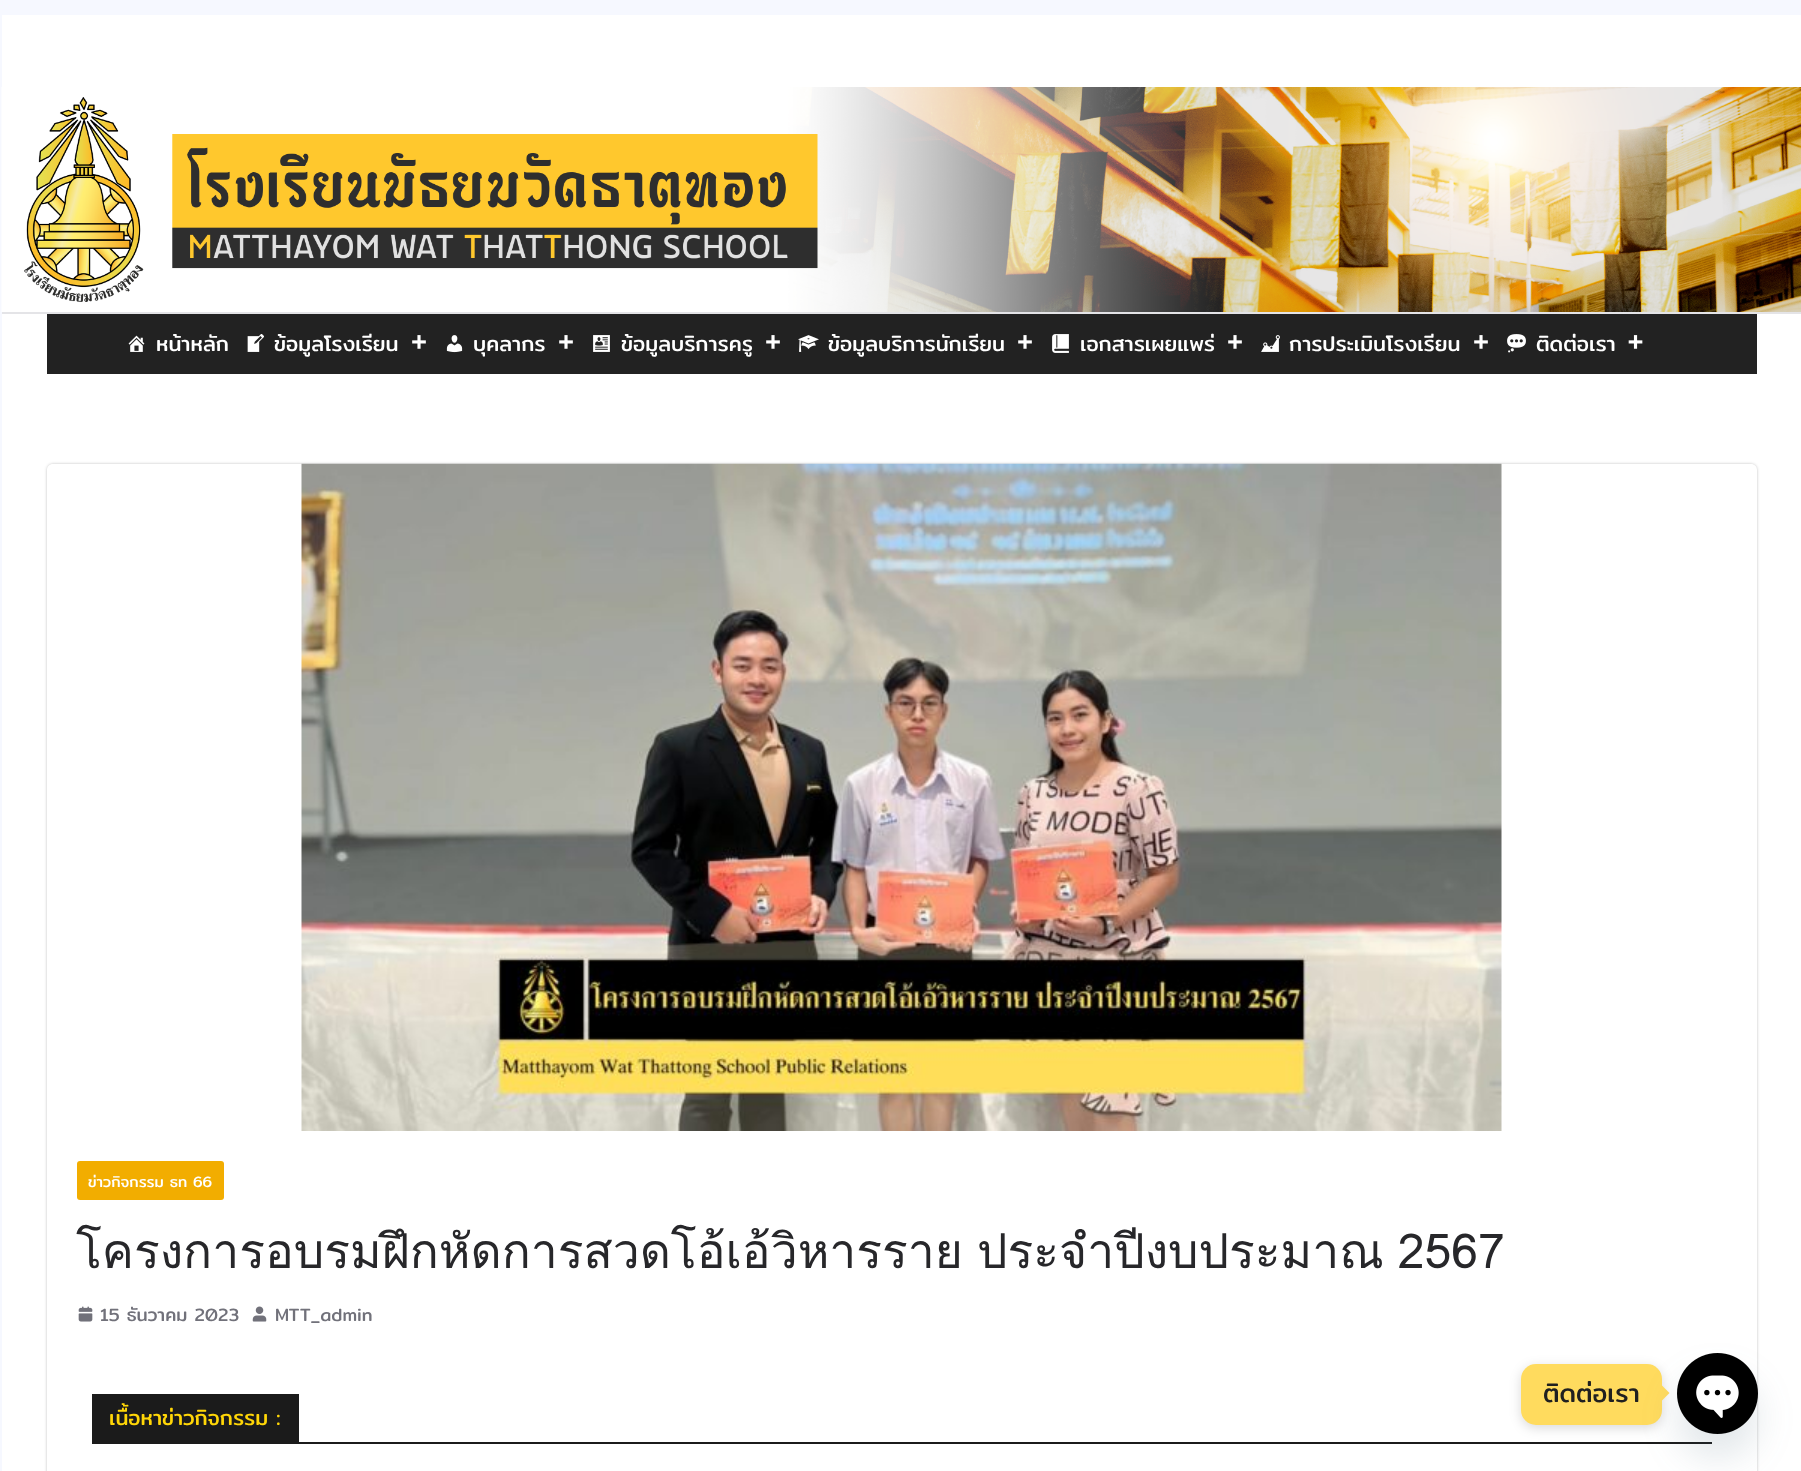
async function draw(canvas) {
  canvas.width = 1801
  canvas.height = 1471
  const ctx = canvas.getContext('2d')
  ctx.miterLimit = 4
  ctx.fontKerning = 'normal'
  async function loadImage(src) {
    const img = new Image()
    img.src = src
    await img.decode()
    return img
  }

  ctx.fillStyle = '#f6f8ff'
  ctx.fillRect(0, 0, 1801, 1471)
  ctx.fillStyle = '#fff'
  ctx.fillRect(2, 15, 1799, 1456)
  ctx.drawImage(await loadImage('image0.png'), 1, 87, 1800, 225)
  ctx.fillStyle = '#e4e4e7'
  ctx.fillRect(2, 312, 1799, 2)
  ctx.fillStyle = '#222'
  ctx.fillRect(47, 314, 1710, 60)
  ctx.drawImage(await loadImage('image1.png'), 128, 335, 17, 17)
  ctx.font = '21px Mitr'
  ctx.fillStyle = '#fff'
  ctx.fillText('หน้าหลัก', 156, 351)
  ctx.drawImage(await loadImage('image2.png'), 247, 334, 17, 18)
  ctx.fillText('ข้อมูลโรงเรียน', 274, 351)
  ctx.drawImage(await loadImage('image3.png'), 412, 335, 14, 14)
  ctx.drawImage(await loadImage('image4.png'), 446, 335, 17, 18)
  ctx.fillText('บุคลากร', 473, 351)
  ctx.drawImage(await loadImage('image3.png'), 559, 335, 14, 14)
  ctx.drawImage(await loadImage('image5.png'), 593, 335, 17, 17)
  ctx.fillText('ข้อมูลบริการครู', 621, 351)
  ctx.drawImage(await loadImage('image3.png'), 766, 335, 14, 14)
  ctx.drawImage(await loadImage('image6.png'), 798, 335, 21, 17)
  ctx.fillText('ข้อมูลบริการนักเรียน', 828, 351)
  ctx.drawImage(await loadImage('image3.png'), 1018, 335, 14, 14)
  ctx.drawImage(await loadImage('image7.png'), 1052, 334, 17, 19)
  ctx.fillText('เอกสารเผยแพร่', 1080, 351)
  ctx.drawImage(await loadImage('image3.png'), 1228, 335, 14, 14)
  ctx.drawImage(await loadImage('image8.png'), 1261, 335, 19, 17)
  ctx.fillText('การประเมินโรงเรียน', 1289, 351)
  ctx.drawImage(await loadImage('image3.png'), 1474, 335, 14, 14)
  ctx.drawImage(await loadImage('image9.png'), 1507, 334, 19, 19)
  ctx.fillText('ติดต่อเรา', 1536, 351)
  ctx.drawImage(await loadImage('image10.png'), 1628, 335, 15, 14)
  ctx.save()
  ctx.beginPath()
  ctx.moveTo(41, 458)
  ctx.lineTo(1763, 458)
  ctx.lineTo(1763, 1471)
  ctx.lineTo(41, 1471)
  ctx.closePath()
  ctx.moveTo(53, 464)
  ctx.lineTo(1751, 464)
  ctx.bezierCurveTo(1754.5, 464, 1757, 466.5, 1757, 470)
  ctx.lineTo(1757, 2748)
  ctx.bezierCurveTo(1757, 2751.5, 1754.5, 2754, 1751, 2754)
  ctx.lineTo(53, 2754)
  ctx.bezierCurveTo(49.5, 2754, 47, 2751.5, 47, 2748)
  ctx.lineTo(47, 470)
  ctx.bezierCurveTo(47, 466.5, 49.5, 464, 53, 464)
  ctx.closePath()
  ctx.clip('evenodd')
  ctx.fillStyle = '#0000003d'
  ctx.filter = 'blur(1.5px)'
  ctx.beginPath()
  ctx.roundRect(47, 464, 1710, 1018, 6)
  ctx.fill()
  ctx.filter = 'none'
  ctx.restore()
  ctx.drawImage(await loadImage('image11.png'), 301, 463, 1201, 668)
  ctx.fillStyle = '#f2ad00'
  ctx.beginPath()
  ctx.roundRect(77, 1161, 147, 39, 3)
  ctx.fill()
  ctx.font = '15px Mitr'
  ctx.fillStyle = '#fff'
  ctx.fillText('ข่าวกิจกรรม ธท 66', 88, 1187)
  ctx.wordSpacing = '-2px'
  ctx.font = '48px Loma'
  ctx.fillStyle = '#27272a'
  ctx.fillText('โครงการอบรมฝึกหัดการสวดโอ้เอ้วิหารราย ประจำปีงบประมาณ 2567', 76, 1268)
  ctx.drawImage(await loadImage('image12.png'), 78, 1306, 15, 16)
  ctx.wordSpacing = '0px'
  ctx.font = '18px Mitr'
  ctx.fillStyle = '#71717a'
  ctx.fillText('15 ธันวาคม 2023', 100, 1321)
  ctx.drawImage(await loadImage('image13.png'), 252, 1306, 15, 16)
  ctx.fillText('MTT_admin', 275, 1321)
  ctx.fillStyle = '#1b1b1b'
  ctx.fillRect(92, 1442, 1620, 2)
  ctx.fillRect(92, 1394, 207, 48)
  ctx.font = '21px Mitr'
  ctx.fillStyle = '#ffd607'
  ctx.fillText('เนื้อหาข่าวกิจกรรม :', 109, 1425)
  ctx.fillStyle = '#00000026'
  ctx.filter = 'blur(6px)'
  ctx.beginPath()
  ctx.roundRect(1521, 1367, 141, 61, 15)
  ctx.fill()
  ctx.filter = 'none'
  ctx.fillStyle = '#ffdb5e'
  ctx.beginPath()
  ctx.roundRect(1521, 1364, 141, 61, 15)
  ctx.fill()
  ctx.font = '25.5px Mitr'
  ctx.fillStyle = '#202020'
  ctx.fillText('ติดต่อเรา', 1543, 1402)
  ctx.fillStyle = '#ffdb5e'
  ctx.beginPath()
  ctx.moveTo(1662, 1400.5)
  ctx.lineTo(1662, 1385.5)
  ctx.lineTo(1669.5, 1393)
  ctx.closePath()
  ctx.fill()
  ctx.fillStyle = '#49687e29'
  ctx.filter = 'blur(18px)'
  ctx.beginPath()
  ctx.roundRect(1677, 1377, 81, 81, 40.5)
  ctx.fill()
  ctx.filter = 'none'
  ctx.drawImage(await loadImage('image14.png'), 1677, 1353, 81, 81)
}

draw(document.querySelector('canvas'))
